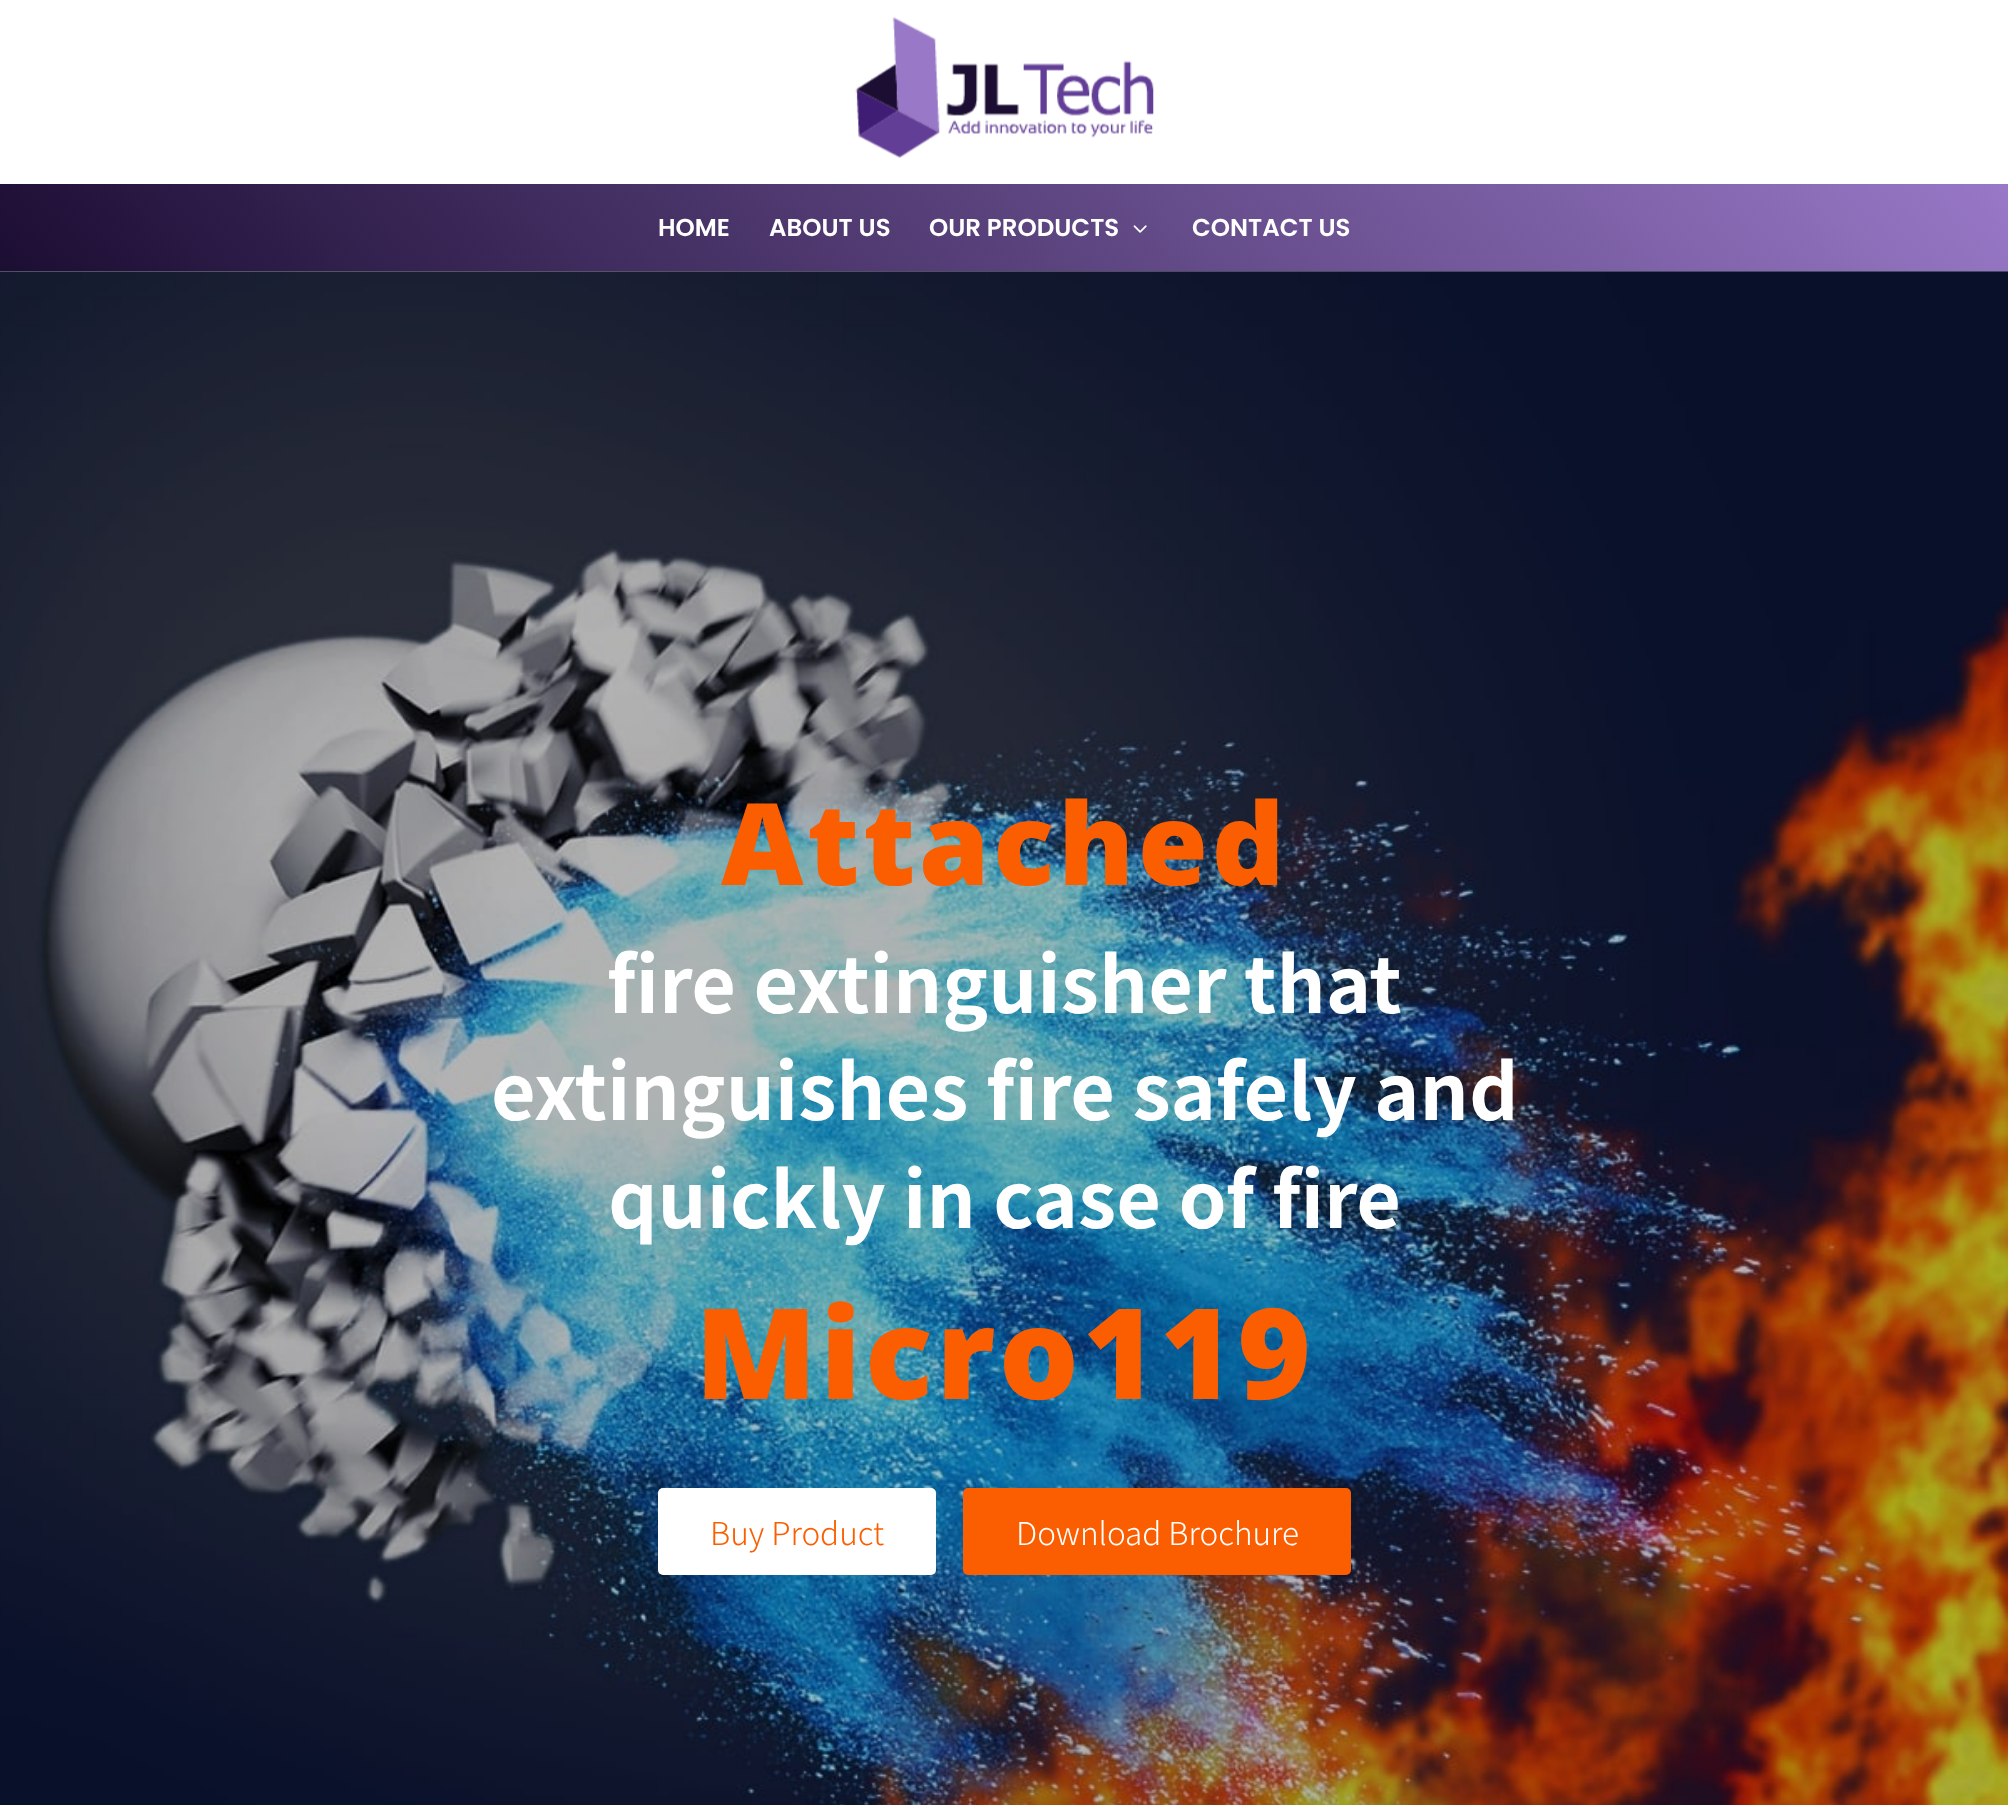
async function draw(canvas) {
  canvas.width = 2008
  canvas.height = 1805
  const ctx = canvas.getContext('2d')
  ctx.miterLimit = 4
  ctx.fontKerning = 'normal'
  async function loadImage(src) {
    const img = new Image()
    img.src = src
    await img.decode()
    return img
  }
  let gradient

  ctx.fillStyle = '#fff'
  ctx.fillRect(0, 0, 2008, 1805)
  ctx.drawImage(await loadImage('image0.png'), 855, 17, 299, 141)
  gradient = ctx.createLinearGradient(428, 747, 1581, -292)
  gradient.addColorStop(0, '#1c0d33')
  gradient.addColorStop(1, '#9878c7')
  ctx.fillStyle = gradient
  ctx.fillRect(0, 184, 2008, 87)
  ctx.font = '600 24.5px Poppins'
  ctx.fillStyle = '#fff'
  ctx.fillText('HOME', 658, 236)
  ctx.fillText('ABOUT US', 769, 236)
  ctx.fillText('OUR PRODUCTS', 929, 236)
  ctx.drawImage(await loadImage('image1.png'), 1133, 225, 14, 8)
  ctx.fillText('CONTACT US', 1192, 236)
  ctx.drawImage(await loadImage('image2.png'), 0, 271, 2008, 1534)
  ctx.letterSpacing = '3.5px'
  ctx.font = '800 113.75px Open Sans'
  ctx.fillStyle = '#fb5e01'
  ctx.fillText('Attached', 721, 885)
  ctx.letterSpacing = '0px'
  ctx.font = 'bold 77px Noto Sans KR'
  ctx.fillStyle = '#fff'
  ctx.fillText('fire extinguisher that', 607, 1013)
  ctx.fillText('extinguishes fire safely and', 491, 1120)
  ctx.fillText('quickly in case of fire', 608, 1228)
  ctx.letterSpacing = '3.5px'
  ctx.font = '800 126px Open Sans'
  ctx.fillStyle = '#fb5e01'
  ctx.fillText('Micro119', 695, 1399)
  ctx.fillStyle = '#fff'
  ctx.beginPath()
  ctx.roundRect(658, 1488, 278, 87, 5)
  ctx.fill()
  ctx.letterSpacing = '0px'
  ctx.font = '300 31.5px Noto Sans KR'
  ctx.fillStyle = '#fb5e01'
  ctx.fillText('Buy Product', 710, 1545)
  ctx.beginPath()
  ctx.roundRect(963, 1488, 388, 87, 5)
  ctx.fill()
  ctx.fillStyle = '#fff'
  ctx.fillText('Download Brochure', 1016, 1545)
}

draw(document.querySelector('canvas'))
